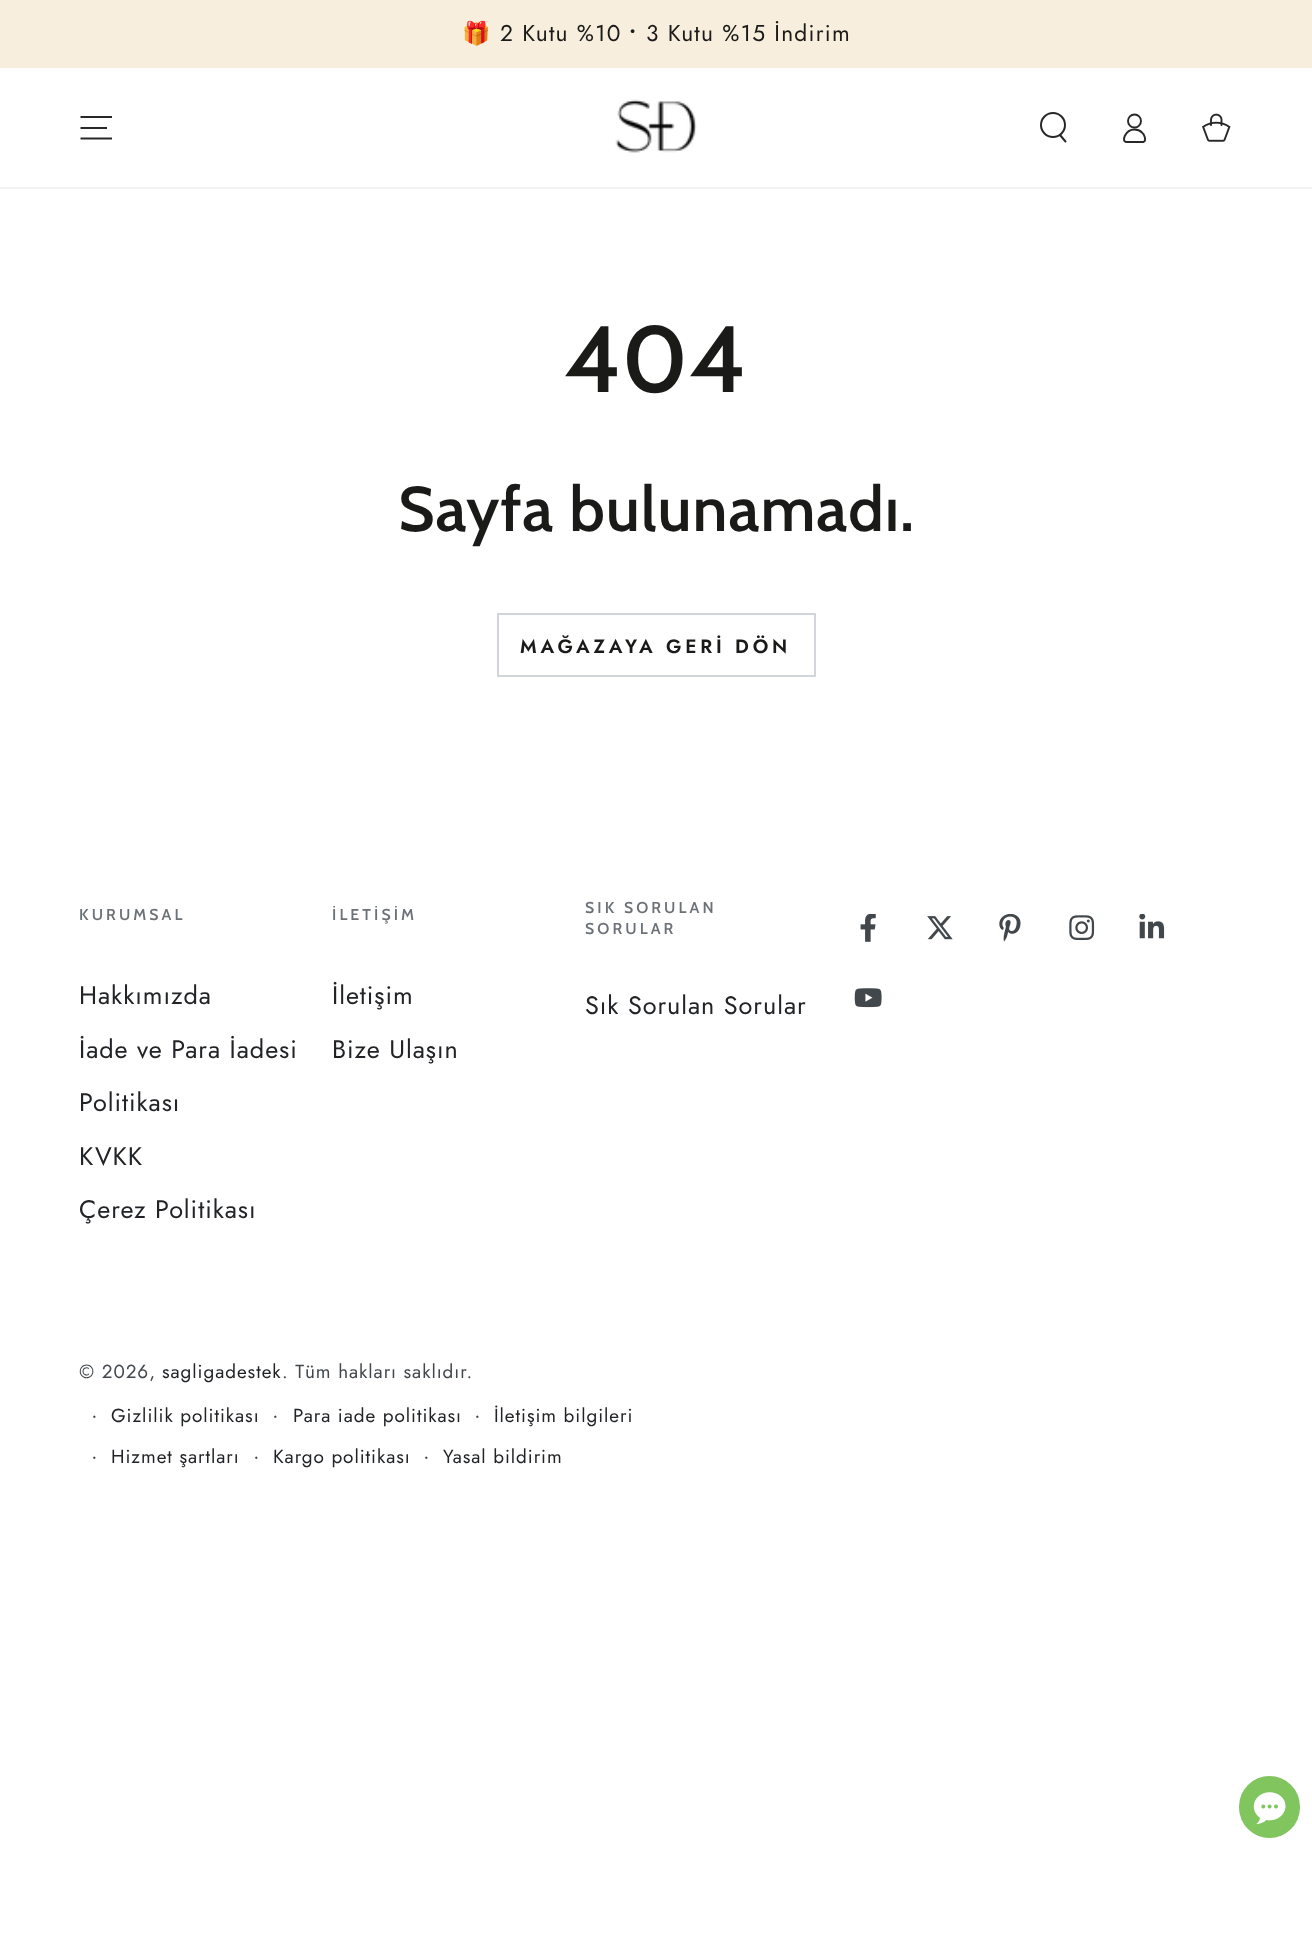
async function draw(canvas) {
  canvas.width = 1312
  canvas.height = 1933
  const ctx = canvas.getContext('2d')
  ctx.miterLimit = 4
  ctx.fontKerning = 'normal'
  async function loadImage(src) {
    const img = new Image()
    img.src = src
    await img.decode()
    return img
  }

  ctx.fillStyle = '#fff'
  ctx.fillRect(0, 0, 1312, 1933)
  ctx.fillStyle = '#f7eedd'
  ctx.fillRect(0, 0, 1312, 68)
  ctx.letterSpacing = '1.25px'
  ctx.font = '22.75px Noto Color Emoji'
  ctx.fillStyle = '#1a1b18'
  ctx.fillText('🎁', 462, 41)
  ctx.font = '22.75px Jost'
  ctx.fillText('2 Kutu %10', 500, 41)
  ctx.font = '600 22.75px Jost'
  ctx.fillText('•', 629, 41)
  ctx.font = '22.75px Jost'
  ctx.fillText('3 Kutu %15 İndirim', 646, 41)
  ctx.fillStyle = '#f2f2f4'
  ctx.beginPath()
  ctx.moveTo(0, 187)
  ctx.lineTo(0, 189)
  ctx.lineTo(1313, 189)
  ctx.lineTo(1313, 70)
  ctx.lineTo(1312, 70)
  ctx.lineTo(1312, 187)
  ctx.closePath()
  ctx.fill()
  ctx.beginPath()
  ctx.moveTo(80.5, 138.5)
  ctx.lineTo(112, 138.5)
  ctx.moveTo(80.5, 128)
  ctx.lineTo(107, 128)
  ctx.moveTo(80.5, 117)
  ctx.lineTo(112, 117)
  ctx.strokeStyle = '#282828'
  ctx.lineWidth = 1.8
  ctx.stroke()
  ctx.drawImage(await loadImage('image0.png'), 615, 99, 82, 54)
  ctx.beginPath()
  ctx.arc(1053, 125, 12, 0, 2 * Math.PI)
  ctx.lineWidth = 2
  ctx.stroke()
  ctx.beginPath()
  ctx.moveTo(1060, 135)
  ctx.lineTo(1065.5, 141.5)
  ctx.lineCap = 'round'
  ctx.stroke()
  ctx.beginPath()
  ctx.moveTo(1134.5, 129.5)
  ctx.bezierCurveTo(1125, 129.5, 1121, 142, 1126.5, 142)
  ctx.lineTo(1143.5, 142)
  ctx.bezierCurveTo(1147, 140.5, 1144, 134, 1142, 132.5)
  ctx.bezierCurveTo(1140, 130.5, 1137.5, 129.5, 1134.5, 129.5)
  ctx.closePath()
  ctx.lineWidth = 1.9
  ctx.lineCap = 'butt'
  ctx.stroke()
  ctx.beginPath()
  ctx.arc(1134.5, 121, 6.5, 0, 2 * Math.PI)
  ctx.stroke()
  ctx.drawImage(await loadImage('image1.png'), 1202, 113, 29, 29)
  ctx.letterSpacing = '0.95px'
  ctx.font = '600 94px Cabin'
  ctx.fillStyle = '#1a1b18'
  ctx.fillText('404', 564, 392)
  ctx.font = '600 63px Cabin'
  ctx.fillText('Sayfa bulunamadı.', 398, 531)
  ctx.strokeStyle = '#d2d5d9'
  ctx.lineWidth = 2
  ctx.strokeRect(498, 614, 317, 62)
  ctx.letterSpacing = '3.8px'
  ctx.font = '600 19.25px Jost'
  ctx.fillText('MAĞAZAYA GERİ DÖN', 520, 653)
  ctx.letterSpacing = '3.1px'
  ctx.font = '600 15.75px Cabin'
  ctx.fillStyle = '#6b7177'
  ctx.fillText('KURUMSAL', 79, 920)
  ctx.letterSpacing = '0.95px'
  ctx.font = '25.25px Jost'
  ctx.fillStyle = '#212326'
  ctx.fillText('Hakkımızda', 79, 1004)
  ctx.fillText('İade ve Para İadesi', 79, 1058)
  ctx.fillText('Politikası', 79, 1111)
  ctx.fillText('KVKK', 79, 1165)
  ctx.fillText('Çerez Politikası', 79, 1218)
  ctx.letterSpacing = '3.1px'
  ctx.font = '600 15.75px Cabin'
  ctx.fillStyle = '#6b7177'
  ctx.fillText('İLETİŞİM', 332, 920)
  ctx.letterSpacing = '0.95px'
  ctx.font = '25.25px Jost'
  ctx.fillStyle = '#212326'
  ctx.fillText('İletişim', 332, 1004)
  ctx.fillText('Bize Ulaşın', 332, 1058)
  ctx.letterSpacing = '3.1px'
  ctx.font = '600 15.75px Cabin'
  ctx.fillStyle = '#6b7177'
  ctx.fillText('SIK SORULAN', 585, 913)
  ctx.fillText('SORULAR', 585, 934)
  ctx.letterSpacing = '0.95px'
  ctx.font = '25.25px Jost'
  ctx.fillStyle = '#212326'
  ctx.fillText('Sık Sorulan Sorular', 585, 1014)
  ctx.drawImage(await loadImage('image2.png'), 860, 914, 16, 28)
  ctx.drawImage(await loadImage('image3.png'), 927, 916, 26, 24)
  ctx.drawImage(await loadImage('image4.png'), 999, 914, 22, 28)
  ctx.drawImage(await loadImage('image5.png'), 1069, 915, 26, 26)
  ctx.drawImage(await loadImage('image6.png'), 1139, 914, 26, 25)
  ctx.drawImage(await loadImage('image7.png'), 854, 988, 28, 20)
  ctx.font = '18.9px Jost'
  ctx.fillStyle = '#42474c'
  ctx.fillText('© 2026,', 79, 1378)
  ctx.fillStyle = '#212326'
  ctx.fillText('sagligadestek', 162, 1378)
  ctx.fillStyle = '#42474c'
  ctx.fillText('. Tüm hakları saklıdır.', 282, 1378)
  ctx.font = '22px Jost'
  ctx.fillText('·', 91, 1422)
  ctx.font = '18.9px Jost'
  ctx.fillStyle = '#212326'
  ctx.fillText('Gizlilik politikası', 111, 1422)
  ctx.font = '22px Jost'
  ctx.fillStyle = '#42474c'
  ctx.fillText('·', 272, 1422)
  ctx.font = '18.9px Jost'
  ctx.fillStyle = '#212326'
  ctx.fillText('Para iade politikası', 293, 1422)
  ctx.font = '22px Jost'
  ctx.fillStyle = '#42474c'
  ctx.fillText('·', 474, 1422)
  ctx.font = '18.9px Jost'
  ctx.fillStyle = '#212326'
  ctx.fillText('İletişim bilgileri', 494, 1422)
  ctx.font = '22px Jost'
  ctx.fillStyle = '#42474c'
  ctx.fillText('·', 91, 1463)
  ctx.font = '18.9px Jost'
  ctx.fillStyle = '#212326'
  ctx.fillText('Hizmet şartları', 111, 1463)
  ctx.font = '22px Jost'
  ctx.fillStyle = '#42474c'
  ctx.fillText('·', 253, 1463)
  ctx.font = '18.9px Jost'
  ctx.fillStyle = '#212326'
  ctx.fillText('Kargo politikası', 273, 1463)
  ctx.font = '22px Jost'
  ctx.fillStyle = '#42474c'
  ctx.fillText('·', 423, 1463)
  ctx.font = '18.9px Jost'
  ctx.fillStyle = '#212326'
  ctx.fillText('Yasal bildirim', 443, 1463)
  ctx.fillStyle = '#80c55e'
  ctx.beginPath()
  ctx.roundRect(1239, 1776, 61, 62, 30.5)
  ctx.fill()
  ctx.drawImage(await loadImage('image8.png'), 1253, 1792, 33, 33)
}

draw(document.querySelector('canvas'))
